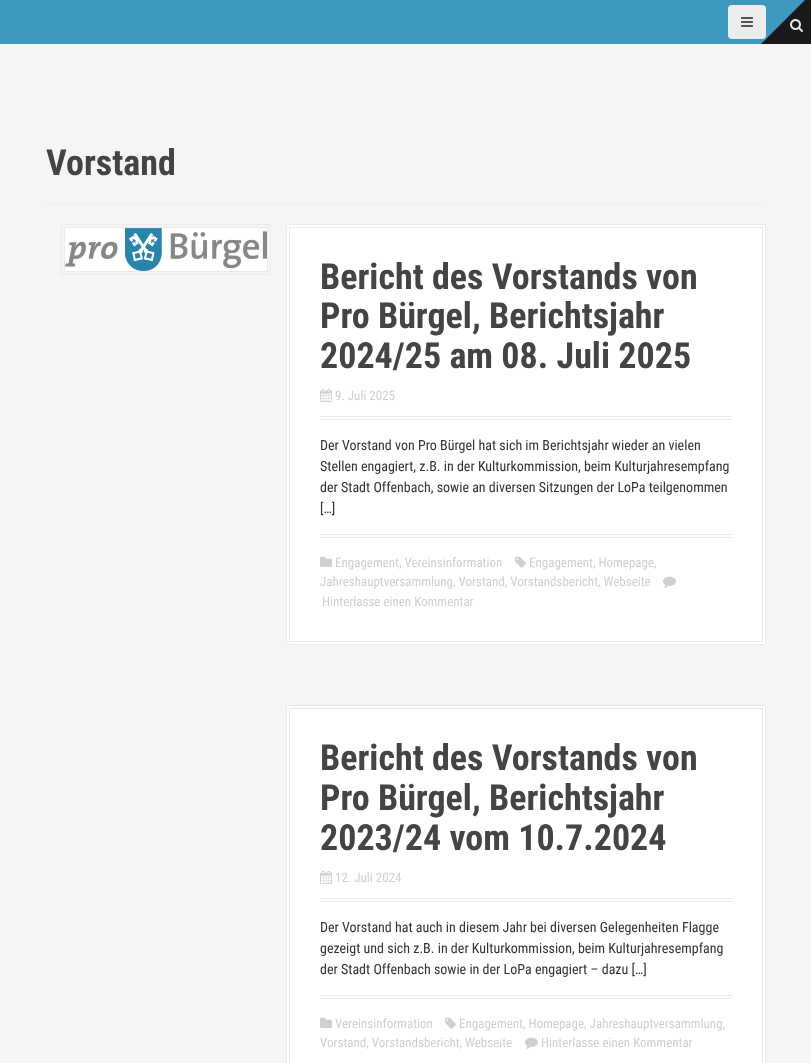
async function draw(canvas) {
  canvas.width = 811
  canvas.height = 1063
  const ctx = canvas.getContext('2d')
  ctx.miterLimit = 4
  ctx.fontKerning = 'normal'
  async function loadImage(src) {
    const img = new Image()
    img.src = src
    await img.decode()
    return img
  }

  ctx.fillStyle = '#f5f5f5'
  ctx.fillRect(0, 0, 811, 1063)
  ctx.fillStyle = '#3d99c0'
  ctx.fillRect(0, 0, 805, 44)
  ctx.fillStyle = '#ececec'
  ctx.beginPath()
  ctx.roundRect(728, 5, 38, 34, 4)
  ctx.fill()
  ctx.drawImage(await loadImage('image0.png'), 741, 17, 12, 10)
  ctx.fillStyle = '#191919'
  ctx.beginPath()
  ctx.moveTo(811, -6)
  ctx.lineTo(811, 44)
  ctx.lineTo(761, 44)
  ctx.closePath()
  ctx.fill()
  ctx.drawImage(await loadImage('image1.png'), 790, 19, 13, 13)
  ctx.fillStyle = '#eee'
  ctx.fillRect(46, 203, 720, 1)
  ctx.font = 'bold 36px Roboto Condensed'
  ctx.fillStyle = '#444'
  ctx.fillText('Vorstand', 46, 175)
  ctx.strokeStyle = '#ebebeb'
  ctx.strokeRect(61.5, 224.5, 209, 50)
  ctx.strokeRect(64.5, 227.5, 203, 44)
  ctx.drawImage(await loadImage('image2.png'), 65, 228, 202, 43)
  ctx.fillStyle = '#fff'
  ctx.beginPath()
  ctx.rect(286.5, 224.5, 479, 420)
  ctx.fill()
  ctx.stroke()
  ctx.strokeRect(289.5, 227.5, 473, 414)
  ctx.fillStyle = '#ebebeb'
  ctx.fillRect(320, 416, 412, 1)
  ctx.fillRect(320, 419, 412, 1)
  ctx.fillStyle = '#444'
  ctx.fillText('Bericht des Vorstands von', 320, 289)
  ctx.fillText('Pro Bürgel, Berichtsjahr', 320, 328)
  ctx.fillText('2024/25 am 08. Juli 2025', 320, 368)
  ctx.drawImage(await loadImage('image3.png'), 320, 388, 12, 14)
  ctx.font = '13px Roboto Condensed'
  ctx.fillStyle = '#cfcfcf'
  ctx.fillText('9. Juli 2025', 335, 400)
  ctx.font = '14px Roboto Condensed'
  ctx.fillStyle = '#333'
  ctx.fillText('Der Vorstand von Pro Bürgel hat sich im Berichtsjahr wieder an vielen', 320, 450)
  ctx.fillText('Stellen engagiert, z.B. in der Kulturkommission, beim Kulturjahresempfang', 320, 471)
  ctx.fillText('der Stadt Offenbach, sowie an diversen Sitzungen der LoPa teilgenommen', 320, 492)
  ctx.fillText('[…]', 320, 513)
  ctx.fillStyle = '#ebebeb'
  ctx.fillRect(320, 534, 412, 1)
  ctx.fillRect(320, 537, 412, 1)
  ctx.drawImage(await loadImage('image4.png'), 515, 556, 11, 12)
  ctx.font = '13px Roboto Condensed'
  ctx.fillStyle = '#cfcfcf'
  ctx.fillText('Engagement, Homepage,', 529, 567)
  ctx.fillText('Jahreshauptversammlung, Vorstand, Vorstandsbericht, Webseite', 320, 586)
  ctx.drawImage(await loadImage('image5.png'), 320, 556, 12, 11)
  ctx.fillText('Engagement, Vereinsinformation', 335, 567)
  ctx.drawImage(await loadImage('image6.png'), 663, 576, 13, 12)
  ctx.fillText('Hinterlasse einen Kommentar', 322, 606)
  ctx.fillStyle = '#fff'
  ctx.beginPath()
  ctx.rect(286.5, 705.5, 479, 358)
  ctx.fill()
  ctx.stroke()
  ctx.strokeRect(289.5, 708.5, 473, 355)
  ctx.fillStyle = '#ebebeb'
  ctx.fillRect(320, 898, 412, 1)
  ctx.fillRect(320, 901, 412, 1)
  ctx.font = 'bold 36px Roboto Condensed'
  ctx.fillStyle = '#444'
  ctx.fillText('Bericht des Vorstands von', 320, 770)
  ctx.fillText('Pro Bürgel, Berichtsjahr', 320, 810)
  ctx.fillText('2023/24 vom 10.7.2024', 320, 850)
  ctx.drawImage(await loadImage('image3.png'), 320, 870, 12, 14)
  ctx.font = '13px Roboto Condensed'
  ctx.fillStyle = '#cfcfcf'
  ctx.fillText('12. Juli 2024', 335, 882)
  ctx.font = '14px Roboto Condensed'
  ctx.fillStyle = '#333'
  ctx.fillText('Der Vorstand hat auch in diesem Jahr bei diversen Gelegenheiten Flagge', 320, 932)
  ctx.fillText('gezeigt und sich z.B. in der Kulturkommission, beim Kulturjahresempfang', 320, 953)
  ctx.fillText('der Stadt Offenbach sowie in der LoPa engagiert – dazu […]', 320, 974)
  ctx.fillStyle = '#ebebeb'
  ctx.fillRect(320, 995, 412, 1)
  ctx.fillRect(320, 998, 412, 1)
  ctx.drawImage(await loadImage('image4.png'), 445, 1017, 11, 12)
  ctx.font = '13px Roboto Condensed'
  ctx.fillStyle = '#cfcfcf'
  ctx.fillText('Engagement, Homepage, Jahreshauptversammlung,', 459, 1028)
  ctx.fillText('Vorstand, Vorstandsbericht, Webseite', 320, 1047)
  ctx.drawImage(await loadImage('image5.png'), 320, 1017, 12, 11)
  ctx.fillText('Vereinsinformation', 335, 1028)
  ctx.drawImage(await loadImage('image6.png'), 525, 1037, 13, 12)
  ctx.fillText('Hinterlasse einen Kommentar', 541, 1047)
}

draw(document.querySelector('canvas'))
